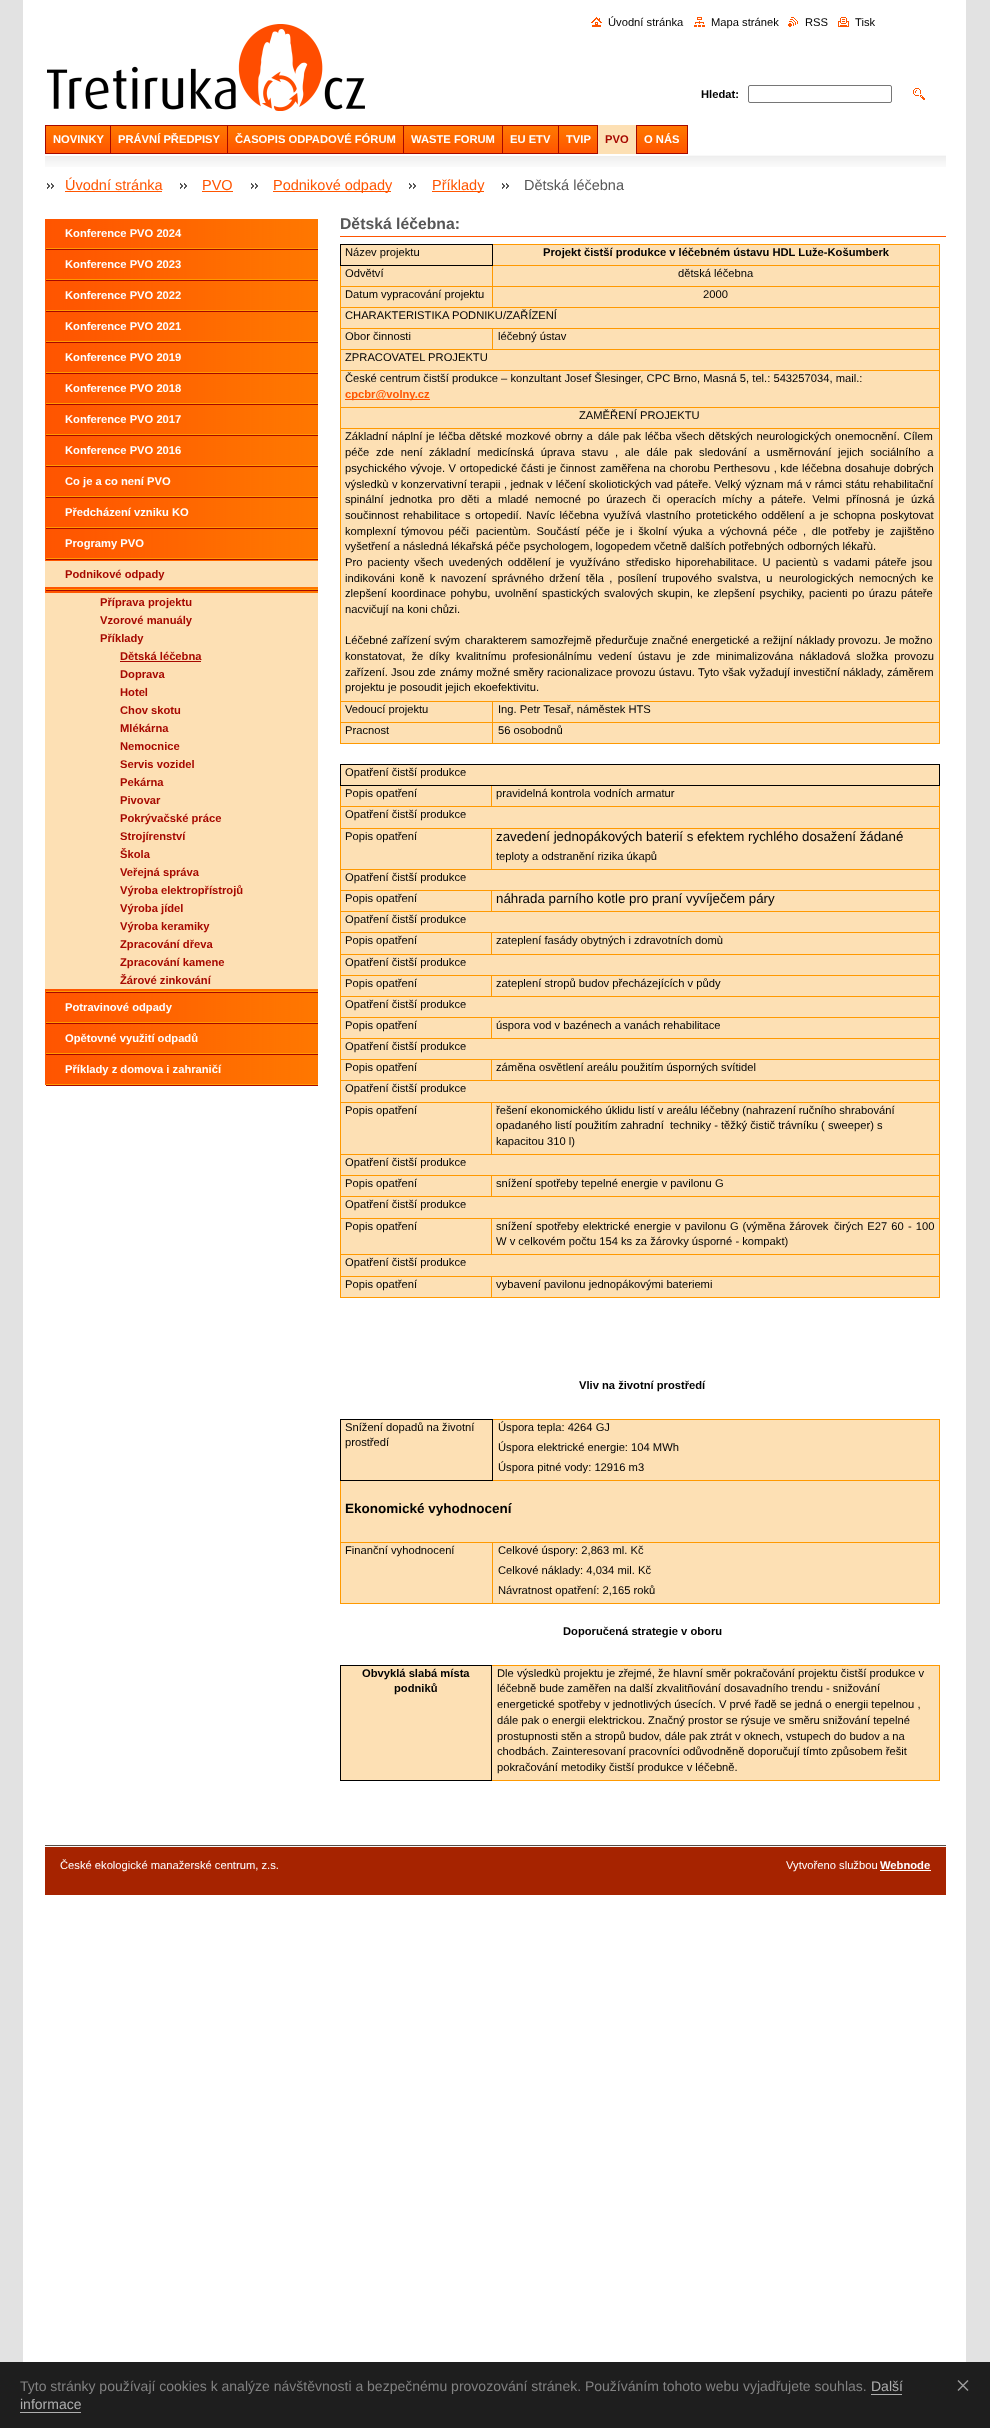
async function draw(canvas) {
  canvas.width = 990
  canvas.height = 2428
  const ctx = canvas.getContext('2d')
  ctx.miterLimit = 4
  ctx.fontKerning = 'normal'
  async function loadImage(src) {
    const img = new Image()
    img.src = src
    await img.decode()
    return img
  }

  ctx.fillStyle = '#e2e2e2'
  ctx.fillRect(0, 0, 990, 2428)
  ctx.fillStyle = '#fff'
  ctx.fillRect(23, 0, 943, 2362)
  ctx.drawImage(await loadImage('image0.png'), 47, 24, 318, 87)
  ctx.drawImage(await loadImage('image1.png'), 591, 17, 11, 10)
  ctx.font = '11.2px Liberation Sans'
  ctx.fillStyle = '#000'
  ctx.fillText('Úvodní stránka', 608, 26)
  ctx.drawImage(await loadImage('image2.png'), 694, 17, 11, 10)
  ctx.fillText('Mapa stránek', 711, 26)
  ctx.drawImage(await loadImage('image3.png'), 788, 17, 10, 10)
  ctx.fillText('RSS', 805, 26)
  ctx.drawImage(await loadImage('image4.png'), 838, 17, 11, 10)
  ctx.fillText('Tisk', 855, 26)
  ctx.font = 'bold 11.2px Liberation Sans'
  ctx.fillText('Hledat:', 701, 98)
  ctx.beginPath()
  ctx.roundRect(748.5, 85.5, 143, 17, 1.5)
  ctx.strokeStyle = '#767676'
  ctx.stroke()
  ctx.drawImage(await loadImage('image5.png'), 913, 88, 12, 12)
  ctx.drawImage(await loadImage('image14.png'), 45, 155, 901, 12)
  ctx.drawImage(await loadImage('image6.png'), 45, 125, 643, 31)
  ctx.drawImage(await loadImage('image7.png'), 46, 126, 64, 27)
  ctx.fillStyle = '#fff'
  ctx.fillText('NOVINKY', 53, 143)
  ctx.drawImage(await loadImage('image8.png'), 111, 126, 116, 27)
  ctx.fillText('PRÁVNÍ PŘEDPISY', 118, 143)
  ctx.drawImage(await loadImage('image9.png'), 228, 126, 175, 27)
  ctx.fillText('ČASOPIS ODPADOVÉ FÓRUM', 235, 143)
  ctx.drawImage(await loadImage('image10.png'), 404, 126, 98, 27)
  ctx.fillText('WASTE FORUM', 411, 143)
  ctx.drawImage(await loadImage('image11.png'), 503, 126, 55, 27)
  ctx.fillText('EU ETV', 510, 143)
  ctx.drawImage(await loadImage('image12.png'), 559, 126, 38, 27)
  ctx.fillText('TVIP', 566, 143)
  ctx.fillRect(598, 125, 38, 29)
  ctx.fillStyle = '#fde0b4'
  ctx.fillRect(598, 125, 38, 29)
  ctx.fillStyle = '#a60800'
  ctx.fillText('PVO', 605, 143)
  ctx.drawImage(await loadImage('image13.png'), 637, 126, 50, 27)
  ctx.fillStyle = '#fff'
  ctx.fillText('O NÁS', 644, 143)
  ctx.drawImage(await loadImage('image15.png'), 47, 183, 7, 6)
  ctx.font = '14.5px Liberation Sans'
  ctx.fillStyle = '#f50'
  ctx.fillText('Úvodní stránka', 65, 190)
  ctx.fillRect(65, 191, 97, 1)
  ctx.drawImage(await loadImage('image15.png'), 180, 183, 7, 6)
  ctx.fillText('PVO', 202, 190)
  ctx.fillRect(202, 191, 31, 1)
  ctx.drawImage(await loadImage('image15.png'), 251, 183, 7, 6)
  ctx.fillRect(273, 191, 118, 1)
  ctx.fillText('Podnikové odpady', 273, 190)
  ctx.drawImage(await loadImage('image15.png'), 409, 183, 7, 6)
  ctx.fillRect(432, 191, 52, 1)
  ctx.fillText('Příklady', 432, 190)
  ctx.drawImage(await loadImage('image15.png'), 502, 183, 7, 6)
  ctx.fillStyle = '#575757'
  ctx.fillText('Dětská léčebna', 524, 190)
  ctx.fillStyle = '#f50'
  ctx.fillRect(340, 236, 606, 1)
  ctx.font = 'bold 15.75px Liberation Sans'
  ctx.fillStyle = '#575757'
  ctx.fillText('Dětská léčebna:', 340, 229)
  ctx.fillStyle = '#fde0b4'
  ctx.fillRect(341, 245, 151, 20)
  ctx.fillStyle = '#f90'
  ctx.fillRect(492, 244, 448, 1)
  ctx.fillStyle = '#000'
  ctx.fillRect(340, 244, 153, 1)
  ctx.fillStyle = '#f90'
  ctx.fillRect(939, 265, 1, 479)
  ctx.fillRect(939, 244, 1, 22)
  ctx.fillRect(492, 307, 448, 1)
  ctx.fillRect(492, 286, 1, 22)
  ctx.fillRect(492, 286, 448, 1)
  ctx.fillRect(492, 265, 1, 22)
  ctx.fillRect(492, 265, 448, 1)
  ctx.fillStyle = '#000'
  ctx.fillRect(492, 244, 1, 22)
  ctx.fillStyle = '#f90'
  ctx.fillRect(492, 349, 448, 1)
  ctx.fillRect(492, 328, 1, 22)
  ctx.fillRect(492, 743, 448, 1)
  ctx.fillRect(492, 722, 1, 22)
  ctx.fillRect(492, 722, 448, 1)
  ctx.fillRect(492, 701, 1, 22)
  ctx.fillRect(340, 743, 153, 1)
  ctx.fillRect(340, 722, 1, 22)
  ctx.fillRect(340, 722, 153, 1)
  ctx.fillRect(340, 701, 1, 22)
  ctx.fillRect(340, 701, 600, 1)
  ctx.fillRect(340, 428, 1, 274)
  ctx.fillRect(340, 428, 600, 1)
  ctx.fillRect(340, 407, 1, 22)
  ctx.fillRect(340, 407, 600, 1)
  ctx.fillRect(340, 370, 1, 38)
  ctx.fillRect(340, 370, 600, 1)
  ctx.fillRect(340, 349, 1, 22)
  ctx.fillRect(340, 349, 153, 1)
  ctx.fillRect(340, 328, 1, 22)
  ctx.fillRect(340, 328, 600, 1)
  ctx.fillRect(340, 307, 1, 22)
  ctx.fillRect(340, 307, 153, 1)
  ctx.fillRect(340, 286, 1, 22)
  ctx.fillRect(340, 286, 153, 1)
  ctx.fillRect(340, 265, 1, 22)
  ctx.fillStyle = '#000'
  ctx.fillRect(340, 265, 153, 1)
  ctx.fillRect(340, 244, 1, 22)
  ctx.font = '11.2px Liberation Sans'
  ctx.fillText('Název projektu', 345, 256)
  ctx.fillStyle = '#fde0b4'
  ctx.fillRect(493, 245, 446, 20)
  ctx.font = 'bold 11.2px Liberation Sans'
  ctx.fillStyle = '#000'
  ctx.fillText('Projekt čistší produkce v léčebném ústavu HDL Luže-Košumberk', 543, 256)
  ctx.fillStyle = '#fde0b4'
  ctx.fillRect(341, 266, 151, 20)
  ctx.font = '11.2px Liberation Sans'
  ctx.fillStyle = '#000'
  ctx.fillText('Odvětví', 345, 277)
  ctx.fillStyle = '#fde0b4'
  ctx.fillRect(493, 266, 446, 20)
  ctx.fillStyle = '#000'
  ctx.fillText('dětská léčebna', 678, 277)
  ctx.fillStyle = '#fde0b4'
  ctx.fillRect(341, 287, 151, 20)
  ctx.fillStyle = '#000'
  ctx.fillText('Datum vypracování projektu', 345, 298)
  ctx.fillStyle = '#fde0b4'
  ctx.fillRect(493, 287, 446, 20)
  ctx.fillStyle = '#000'
  ctx.fillText('2000', 703, 298)
  ctx.fillStyle = '#fde0b4'
  ctx.fillRect(341, 308, 598, 20)
  ctx.fillStyle = '#000'
  ctx.fillText('CHARAKTERISTIKA PODNIKU/ZAŘÍZENÍ', 345, 319)
  ctx.fillStyle = '#fde0b4'
  ctx.fillRect(341, 329, 151, 20)
  ctx.fillStyle = '#000'
  ctx.fillText('Obor činnosti', 345, 340)
  ctx.fillStyle = '#fde0b4'
  ctx.fillRect(493, 329, 446, 20)
  ctx.fillStyle = '#000'
  ctx.fillText('léčebný ústav', 498, 340)
  ctx.fillStyle = '#fde0b4'
  ctx.fillRect(341, 350, 598, 20)
  ctx.fillStyle = '#000'
  ctx.fillText('ZPRACOVATEL PROJEKTU', 345, 361)
  ctx.fillStyle = '#fde0b4'
  ctx.fillRect(341, 371, 598, 36)
  ctx.fillStyle = '#000'
  ctx.fillText('České centrum čistší produkce – konzultant Josef Šlesinger, CPC Brno, Masná 5, tel.: 543257034, mail.:', 345, 382)
  ctx.fillStyle = '#f50'
  ctx.fillRect(345, 399, 85, 1)
  ctx.font = 'bold 11.2px Liberation Sans'
  ctx.fillText('cpcbr@volny.cz', 345, 398)
  ctx.fillStyle = '#fde0b4'
  ctx.fillRect(341, 408, 598, 20)
  ctx.font = '11.2px Liberation Sans'
  ctx.fillStyle = '#000'
  ctx.fillText('ZAMĚŘENÍ PROJEKTU', 579, 419)
  ctx.fillStyle = '#fde0b4'
  ctx.fillRect(341, 429, 598, 272)
  ctx.wordSpacing = '0.75px'
  ctx.fillStyle = '#000'
  ctx.fillText('Základní náplní je léčba dětské mozkové obrny a', 345, 440)
  ctx.fillText('dále pak léčba všech dětských neurologických onemocnění. Cílem', 598, 440)
  ctx.wordSpacing = '3.6px'
  ctx.fillText('péče zde není', 345, 456)
  ctx.fillText('základní medicínská úprava stavu , ale dále pak sledování a usměrnování', 429, 456)
  ctx.fillText('jejich sociálního a', 838, 456)
  ctx.wordSpacing = '0.5px'
  ctx.fillText('psychického vývoje. V ortopedické části je činnost', 345, 472)
  ctx.fillText('zaměřena na chorobu Perthesovu , kde léčebna dosahuje dobrých', 600, 472)
  ctx.wordSpacing = '0.25px'
  ctx.fillText('výsledkù v konzervativní terapii , jednak v léčení skoliotických vad páteře. Velký', 345, 488)
  ctx.fillText('význam má v rámci státu rehabilitační', 745, 488)
  ctx.wordSpacing = '3.25px'
  ctx.fillText('spinální jednotka pro děti a mladé', 345, 503)
  ctx.fillText('nemocné po úrazech či operacích míchy a páteře. Velmi přínosná je úzká', 535, 503)
  ctx.wordSpacing = '1.5px'
  ctx.fillText('součinnost rehabilitace s ortopedií. Navíc léčebna využívá vlastního', 345, 519)
  ctx.fillText('protetického oddělení a je schopna poskytovat', 696, 519)
  ctx.wordSpacing = '2px'
  ctx.fillText('komplexní týmovou péči', 345, 535)
  ctx.wordSpacing = '2.6px'
  ctx.fillText('pacientùm. Součástí péče je i školní výuka a výchovná péče , dle potřeby je', 476, 535)
  ctx.wordSpacing = '0px'
  ctx.fillText('zajištěno', 890, 535)
  ctx.fillText('vyšetření a následná lékařská péče psychologem, logopedem včetně dalších potřebných odborných lékařù.', 345, 550)
  ctx.wordSpacing = '2px'
  ctx.fillText('Pro pacienty všech uvedených oddělení je využíváno', 345, 566)
  ctx.fillText('středisko hiporehabilitace. U pacientù s vadami páteře jsou', 626, 566)
  ctx.wordSpacing = '2.25px'
  ctx.fillText('indikováni koně k', 345, 582)
  ctx.fillText('navození správného držení těla , posílení trupového svalstva, u', 441, 582)
  ctx.fillText('neurologických nemocných ke', 779, 582)
  ctx.wordSpacing = '1.5px'
  ctx.fillText('zlepšení koordinace pohybu, uvolnění spastických', 345, 597)
  ctx.wordSpacing = '1.25px'
  ctx.fillText('svalových skupin, ke zlepšení psychiky, pacienti po úrazu páteře', 604, 597)
  ctx.wordSpacing = '0px'
  ctx.fillText('nacvičují na koni chůzi.', 345, 613)
  ctx.fillText('Léčebné zařízení svým', 345, 644)
  ctx.wordSpacing = '0.5px'
  ctx.fillText('charakterem samozřejmě předurčuje značné energetické a režijní náklady', 465, 644)
  ctx.wordSpacing = '0px'
  ctx.fillText('provozu. Je možno', 838, 644)
  ctx.wordSpacing = '3px'
  ctx.fillText('konstatovat, že díky kvalitnímu profesionálnímu vedení', 345, 660)
  ctx.fillText('ústavu je zde minimalizována nákladová složka provozu', 638, 660)
  ctx.wordSpacing = '0px'
  ctx.fillText('zařízení. Jsou zde', 345, 676)
  ctx.wordSpacing = '0.25px'
  ctx.fillText('známy možné směry racionalizace provozu ústavu. Tyto však vyžadují investiční', 440, 676)
  ctx.wordSpacing = '0px'
  ctx.fillText('náklady, záměrem', 843, 676)
  ctx.fillText('projektu je posoudit jejich ekoefektivitu.', 345, 691)
  ctx.fillStyle = '#fde0b4'
  ctx.fillRect(341, 702, 151, 20)
  ctx.fillStyle = '#000'
  ctx.fillText('Vedoucí projektu', 345, 713)
  ctx.fillStyle = '#fde0b4'
  ctx.fillRect(493, 702, 446, 20)
  ctx.fillStyle = '#000'
  ctx.fillText('Ing. Petr Tesař, náměstek HTS', 498, 713)
  ctx.fillStyle = '#fde0b4'
  ctx.fillRect(341, 723, 151, 20)
  ctx.fillStyle = '#000'
  ctx.fillText('Pracnost', 345, 734)
  ctx.fillStyle = '#fde0b4'
  ctx.fillRect(493, 723, 446, 20)
  ctx.fillStyle = '#000'
  ctx.fillText('56 osobodnů', 498, 734)
  ctx.fillStyle = '#fde0b4'
  ctx.fillRect(341, 765, 598, 20)
  ctx.fillStyle = '#000'
  ctx.fillRect(340, 764, 600, 1)
  ctx.fillStyle = '#f90'
  ctx.fillRect(939, 785, 1, 513)
  ctx.fillStyle = '#000'
  ctx.fillRect(939, 764, 1, 22)
  ctx.fillStyle = '#f90'
  ctx.fillRect(491, 806, 449, 1)
  ctx.fillRect(491, 785, 1, 22)
  ctx.fillRect(491, 869, 449, 1)
  ctx.fillRect(491, 828, 1, 42)
  ctx.fillRect(491, 911, 449, 1)
  ctx.fillRect(491, 890, 1, 22)
  ctx.fillRect(491, 954, 449, 1)
  ctx.fillRect(491, 932, 1, 23)
  ctx.fillRect(491, 996, 449, 1)
  ctx.fillRect(491, 975, 1, 22)
  ctx.fillRect(491, 1038, 449, 1)
  ctx.fillRect(491, 1017, 1, 22)
  ctx.fillRect(491, 1080, 449, 1)
  ctx.fillRect(491, 1059, 1, 22)
  ctx.fillRect(491, 1154, 449, 1)
  ctx.fillRect(491, 1102, 1, 53)
  ctx.fillRect(491, 1196, 449, 1)
  ctx.fillRect(491, 1175, 1, 22)
  ctx.fillRect(491, 1254, 449, 1)
  ctx.fillRect(491, 1218, 1, 37)
  ctx.fillRect(491, 1297, 449, 1)
  ctx.fillRect(491, 1276, 1, 22)
  ctx.fillRect(340, 1297, 152, 1)
  ctx.fillRect(340, 1276, 1, 22)
  ctx.fillRect(340, 1276, 600, 1)
  ctx.fillRect(340, 1254, 1, 23)
  ctx.fillRect(340, 1254, 152, 1)
  ctx.fillRect(340, 1218, 1, 37)
  ctx.fillRect(340, 1218, 600, 1)
  ctx.fillRect(340, 1196, 1, 23)
  ctx.fillRect(340, 1196, 152, 1)
  ctx.fillRect(340, 1175, 1, 22)
  ctx.fillRect(340, 1175, 600, 1)
  ctx.fillRect(340, 1154, 1, 22)
  ctx.fillRect(340, 1154, 152, 1)
  ctx.fillRect(340, 1102, 1, 53)
  ctx.fillRect(340, 1102, 600, 1)
  ctx.fillRect(340, 1080, 1, 23)
  ctx.fillRect(340, 1080, 152, 1)
  ctx.fillRect(340, 1059, 1, 22)
  ctx.fillRect(340, 1059, 600, 1)
  ctx.fillRect(340, 1038, 1, 22)
  ctx.fillRect(340, 1038, 152, 1)
  ctx.fillRect(340, 1017, 1, 22)
  ctx.fillRect(340, 1017, 600, 1)
  ctx.fillRect(340, 996, 1, 22)
  ctx.fillRect(340, 996, 152, 1)
  ctx.fillRect(340, 975, 1, 22)
  ctx.fillRect(340, 975, 600, 1)
  ctx.fillRect(340, 954, 1, 22)
  ctx.fillRect(340, 954, 152, 1)
  ctx.fillRect(340, 932, 1, 23)
  ctx.fillRect(340, 932, 600, 1)
  ctx.fillRect(340, 911, 1, 22)
  ctx.fillRect(340, 911, 152, 1)
  ctx.fillRect(340, 890, 1, 22)
  ctx.fillRect(340, 890, 600, 1)
  ctx.fillRect(340, 869, 1, 22)
  ctx.fillRect(340, 869, 152, 1)
  ctx.fillRect(340, 828, 1, 42)
  ctx.fillRect(340, 828, 600, 1)
  ctx.fillRect(340, 806, 1, 23)
  ctx.fillRect(340, 806, 152, 1)
  ctx.fillRect(340, 785, 1, 22)
  ctx.fillStyle = '#000'
  ctx.fillRect(340, 785, 600, 1)
  ctx.fillRect(340, 764, 1, 22)
  ctx.fillText('Opatření čistší produkce', 345, 776)
  ctx.fillStyle = '#fde0b4'
  ctx.fillRect(341, 786, 150, 20)
  ctx.fillStyle = '#000'
  ctx.fillText('Popis opatření', 345, 797)
  ctx.fillStyle = '#fde0b4'
  ctx.fillRect(492, 786, 447, 20)
  ctx.fillStyle = '#000'
  ctx.fillText('pravidelná kontrola vodních armatur', 496, 797)
  ctx.fillStyle = '#fde0b4'
  ctx.fillRect(341, 807, 598, 21)
  ctx.fillStyle = '#000'
  ctx.fillText('Opatření čistší produkce', 345, 818)
  ctx.fillStyle = '#fde0b4'
  ctx.fillRect(341, 829, 150, 40)
  ctx.fillStyle = '#000'
  ctx.fillText('Popis opatření', 345, 840)
  ctx.fillStyle = '#fde0b4'
  ctx.fillRect(492, 829, 447, 40)
  ctx.font = '13.3px Liberation Sans'
  ctx.fillStyle = '#000'
  ctx.fillText('zavedení jednopákových baterií s efektem rychlého dosažení žádané', 496, 841)
  ctx.font = '11.2px Liberation Sans'
  ctx.fillText('teploty a odstranění rizika úkapů', 496, 860)
  ctx.fillStyle = '#fde0b4'
  ctx.fillRect(341, 870, 598, 20)
  ctx.fillStyle = '#000'
  ctx.fillText('Opatření čistší produkce', 345, 881)
  ctx.fillStyle = '#fde0b4'
  ctx.fillRect(341, 891, 150, 20)
  ctx.fillStyle = '#000'
  ctx.fillText('Popis opatření', 345, 902)
  ctx.fillStyle = '#fde0b4'
  ctx.fillRect(492, 891, 447, 20)
  ctx.font = '13.3px Liberation Sans'
  ctx.fillStyle = '#000'
  ctx.fillText('náhrada parního kotle pro praní vyvíječem páry', 496, 903)
  ctx.fillStyle = '#fde0b4'
  ctx.fillRect(341, 912, 598, 20)
  ctx.font = '11.2px Liberation Sans'
  ctx.fillStyle = '#000'
  ctx.fillText('Opatření čistší produkce', 345, 923)
  ctx.fillStyle = '#fde0b4'
  ctx.fillRect(341, 933, 150, 21)
  ctx.fillStyle = '#000'
  ctx.fillText('Popis opatření', 345, 944)
  ctx.fillStyle = '#fde0b4'
  ctx.fillRect(492, 933, 447, 21)
  ctx.fillStyle = '#000'
  ctx.fillText('zateplení fasády obytných i zdravotních domù', 496, 944)
  ctx.fillStyle = '#fde0b4'
  ctx.fillRect(341, 955, 598, 20)
  ctx.fillStyle = '#000'
  ctx.fillText('Opatření čistší produkce', 345, 966)
  ctx.fillStyle = '#fde0b4'
  ctx.fillRect(341, 976, 150, 20)
  ctx.fillStyle = '#000'
  ctx.fillText('Popis opatření', 345, 987)
  ctx.fillStyle = '#fde0b4'
  ctx.fillRect(492, 976, 447, 20)
  ctx.fillStyle = '#000'
  ctx.fillText('zateplení stropů budov přecházejících v půdy', 496, 987)
  ctx.fillStyle = '#fde0b4'
  ctx.fillRect(341, 997, 598, 20)
  ctx.fillStyle = '#000'
  ctx.fillText('Opatření čistší produkce', 345, 1008)
  ctx.fillStyle = '#fde0b4'
  ctx.fillRect(341, 1018, 150, 20)
  ctx.fillStyle = '#000'
  ctx.fillText('Popis opatření', 345, 1029)
  ctx.fillStyle = '#fde0b4'
  ctx.fillRect(492, 1018, 447, 20)
  ctx.fillStyle = '#000'
  ctx.fillText('úspora vod v bazénech a vanách rehabilitace', 496, 1029)
  ctx.fillStyle = '#fde0b4'
  ctx.fillRect(341, 1039, 598, 20)
  ctx.fillStyle = '#000'
  ctx.fillText('Opatření čistší produkce', 345, 1050)
  ctx.fillStyle = '#fde0b4'
  ctx.fillRect(341, 1060, 150, 20)
  ctx.fillStyle = '#000'
  ctx.fillText('Popis opatření', 345, 1071)
  ctx.fillStyle = '#fde0b4'
  ctx.fillRect(492, 1060, 447, 20)
  ctx.fillStyle = '#000'
  ctx.fillText('záměna osvětlení areálu použitím úsporných svítidel', 496, 1071)
  ctx.fillStyle = '#fde0b4'
  ctx.fillRect(341, 1081, 598, 21)
  ctx.fillStyle = '#000'
  ctx.fillText('Opatření čistší produkce', 345, 1092)
  ctx.fillStyle = '#fde0b4'
  ctx.fillRect(341, 1103, 150, 51)
  ctx.fillStyle = '#000'
  ctx.fillText('Popis opatření', 345, 1114)
  ctx.fillStyle = '#fde0b4'
  ctx.fillRect(492, 1103, 447, 51)
  ctx.fillStyle = '#000'
  ctx.fillText('řešení ekonomického úklidu listí v areálu léčebny (nahrazení ručního shrabování', 496, 1114)
  ctx.fillText('opadaného listí použitím zahradní', 496, 1129)
  ctx.fillText('techniky - těžký čistič trávníku ( sweeper) s', 670, 1129)
  ctx.fillText('kapacitou 310 l)', 496, 1145)
  ctx.fillStyle = '#fde0b4'
  ctx.fillRect(341, 1155, 598, 20)
  ctx.fillStyle = '#000'
  ctx.fillText('Opatření čistší produkce', 345, 1166)
  ctx.fillStyle = '#fde0b4'
  ctx.fillRect(341, 1176, 150, 20)
  ctx.fillStyle = '#000'
  ctx.fillText('Popis opatření', 345, 1187)
  ctx.fillStyle = '#fde0b4'
  ctx.fillRect(492, 1176, 447, 20)
  ctx.fillStyle = '#000'
  ctx.fillText('snížení spotřeby tepelné energie v pavilonu G', 496, 1187)
  ctx.fillStyle = '#fde0b4'
  ctx.fillRect(341, 1197, 598, 21)
  ctx.fillStyle = '#000'
  ctx.fillText('Opatření čistší produkce', 345, 1208)
  ctx.fillStyle = '#fde0b4'
  ctx.fillRect(341, 1219, 150, 35)
  ctx.fillStyle = '#000'
  ctx.fillText('Popis opatření', 345, 1230)
  ctx.fillStyle = '#fde0b4'
  ctx.fillRect(492, 1219, 447, 35)
  ctx.wordSpacing = '0.75px'
  ctx.fillStyle = '#000'
  ctx.fillText('snížení spotřeby elektrické energie v pavilonu G (výměna žárovek', 496, 1230)
  ctx.wordSpacing = '1px'
  ctx.fillText('čirých E27 60 - 100', 834, 1230)
  ctx.wordSpacing = '0px'
  ctx.fillText('W v celkovém počtu 154 ks za žárovky úsporné - kompakt)', 496, 1245)
  ctx.fillStyle = '#fde0b4'
  ctx.fillRect(341, 1255, 598, 21)
  ctx.fillStyle = '#000'
  ctx.fillText('Opatření čistší produkce', 345, 1266)
  ctx.fillStyle = '#fde0b4'
  ctx.fillRect(341, 1277, 150, 20)
  ctx.fillStyle = '#000'
  ctx.fillText('Popis opatření', 345, 1288)
  ctx.fillStyle = '#fde0b4'
  ctx.fillRect(492, 1277, 447, 20)
  ctx.fillStyle = '#000'
  ctx.fillText('vybavení pavilonu jednopákovými bateriemi', 496, 1288)
  ctx.font = 'bold 11.2px Liberation Sans'
  ctx.fillText('Vliv na životní prostředí', 579, 1389)
  ctx.fillStyle = '#fde0b4'
  ctx.fillRect(341, 1420, 151, 60)
  ctx.fillStyle = '#f90'
  ctx.fillRect(492, 1419, 448, 1)
  ctx.fillStyle = '#000'
  ctx.fillRect(340, 1419, 153, 1)
  ctx.fillStyle = '#f90'
  ctx.fillRect(939, 1480, 1, 124)
  ctx.fillRect(939, 1419, 1, 62)
  ctx.fillRect(492, 1480, 448, 1)
  ctx.fillStyle = '#000'
  ctx.fillRect(492, 1419, 1, 62)
  ctx.fillStyle = '#f90'
  ctx.fillRect(492, 1603, 448, 1)
  ctx.fillRect(492, 1542, 1, 62)
  ctx.fillRect(340, 1603, 153, 1)
  ctx.fillRect(340, 1542, 1, 62)
  ctx.fillRect(340, 1542, 600, 1)
  ctx.fillRect(340, 1480, 1, 63)
  ctx.fillStyle = '#000'
  ctx.fillRect(340, 1480, 153, 1)
  ctx.fillRect(340, 1419, 1, 62)
  ctx.font = '11.2px Liberation Sans'
  ctx.fillText('Snížení dopadů na životní', 345, 1431)
  ctx.fillText('prostředí', 345, 1446)
  ctx.fillStyle = '#fde0b4'
  ctx.fillRect(493, 1420, 446, 60)
  ctx.fillStyle = '#000'
  ctx.fillText('Úspora tepla: 4264 GJ', 498, 1431)
  ctx.fillText('Úspora elektrické energie: 104 MWh', 498, 1451)
  ctx.fillText('Úspora pitné vody: 12916 m3', 498, 1471)
  ctx.fillStyle = '#fde0b4'
  ctx.fillRect(341, 1481, 598, 61)
  ctx.font = 'bold 13.5px Liberation Sans'
  ctx.fillStyle = '#000'
  ctx.fillText('Ekonomické vyhodnocení', 345, 1513)
  ctx.fillStyle = '#fde0b4'
  ctx.fillRect(341, 1543, 151, 60)
  ctx.font = '11.2px Liberation Sans'
  ctx.fillStyle = '#000'
  ctx.fillText('Finanční vyhodnocení', 345, 1554)
  ctx.fillStyle = '#fde0b4'
  ctx.fillRect(493, 1543, 446, 60)
  ctx.fillStyle = '#000'
  ctx.fillText('Celkové úspory: 2,863 ml. Kč', 498, 1554)
  ctx.fillText('Celkové náklady: 4,034 mil. Kč', 498, 1574)
  ctx.fillText('Návratnost opatření: 2,165 roků', 498, 1594)
  ctx.font = 'bold 11.2px Liberation Sans'
  ctx.fillText('Doporučená strategie v oboru', 563, 1635)
  ctx.fillStyle = '#fde0b4'
  ctx.fillRect(341, 1666, 150, 114)
  ctx.fillStyle = '#f90'
  ctx.fillRect(491, 1665, 449, 1)
  ctx.fillStyle = '#000'
  ctx.fillRect(340, 1665, 152, 1)
  ctx.fillStyle = '#f90'
  ctx.fillRect(939, 1665, 1, 116)
  ctx.fillRect(491, 1780, 449, 1)
  ctx.fillStyle = '#000'
  ctx.fillRect(491, 1665, 1, 116)
  ctx.fillRect(340, 1780, 152, 1)
  ctx.fillRect(340, 1665, 1, 116)
  ctx.fillText('Obvyklá slabá místa', 362, 1677)
  ctx.fillText('podniků', 394, 1692)
  ctx.fillStyle = '#fde0b4'
  ctx.fillRect(492, 1666, 447, 114)
  ctx.font = '11.2px Liberation Sans'
  ctx.fillStyle = '#000'
  ctx.fillText('Dle výsledkù projektu je zřejmé, že hlavní směr pokračování projektu čistší produkce v', 497, 1677)
  ctx.fillText('léčebně bude zaměřen na další zkvalitñování dosavadního trendu - snižování', 497, 1692)
  ctx.fillText('energetické spotřeby v jednotlivých úsecích. V prvé řadě se jedná o energii tepelnou ,', 497, 1708)
  ctx.fillText('dále pak o energii elektrickou. Značný prostor se rýsuje ve směru snižování tepelné', 497, 1724)
  ctx.fillText('prostupnosti stěn a stropů budov, dále pak ztrát v oknech, vstupech do budov a na', 497, 1740)
  ctx.fillText('chodbách. Zainteresovaní pracovníci odůvodněně doporučují tímto způsobem řešit', 497, 1755)
  ctx.fillText('pokračování metodiky čistší produkce v léčebně.', 497, 1771)
  ctx.drawImage(await loadImage('image16.png'), 45, 219, 273, 863)
  ctx.font = 'bold 11.2px Liberation Sans'
  ctx.fillStyle = '#fff'
  ctx.fillText('Konference PVO 2024', 65, 237)
  ctx.drawImage(await loadImage('image17.png'), 46, 248, 272, 2)
  ctx.fillText('Konference PVO 2023', 65, 268)
  ctx.drawImage(await loadImage('image17.png'), 46, 279, 272, 2)
  ctx.fillText('Konference PVO 2022', 65, 299)
  ctx.drawImage(await loadImage('image17.png'), 46, 310, 272, 2)
  ctx.fillText('Konference PVO 2021', 65, 330)
  ctx.drawImage(await loadImage('image17.png'), 46, 341, 272, 2)
  ctx.fillText('Konference PVO 2019', 65, 361)
  ctx.drawImage(await loadImage('image17.png'), 46, 372, 272, 2)
  ctx.fillText('Konference PVO 2018', 65, 392)
  ctx.drawImage(await loadImage('image17.png'), 46, 403, 272, 2)
  ctx.fillText('Konference PVO 2017', 65, 423)
  ctx.drawImage(await loadImage('image17.png'), 46, 434, 272, 2)
  ctx.fillText('Konference PVO 2016', 65, 454)
  ctx.drawImage(await loadImage('image17.png'), 46, 465, 272, 2)
  ctx.fillText('Co je a co není PVO', 65, 485)
  ctx.drawImage(await loadImage('image17.png'), 46, 496, 272, 2)
  ctx.fillText('Předcházení vzniku KO', 65, 516)
  ctx.drawImage(await loadImage('image17.png'), 46, 527, 272, 2)
  ctx.fillText('Programy PVO', 65, 547)
  ctx.drawImage(await loadImage('image17.png'), 46, 558, 272, 2)
  ctx.fillStyle = '#fde0b4'
  ctx.fillRect(45, 561, 273, 26)
  ctx.fillStyle = '#a60800'
  ctx.fillText('Podnikové odpady', 65, 578)
  ctx.drawImage(await loadImage('image17.png'), 46, 589, 272, 2)
  ctx.fillStyle = '#fde0b4'
  ctx.fillRect(45, 593, 273, 396)
  ctx.fillStyle = '#a60800'
  ctx.fillText('Příprava projektu', 100, 606)
  ctx.fillText('Vzorové manuály', 100, 624)
  ctx.fillText('Příklady', 100, 642)
  ctx.fillText('Dětská léčebna', 120, 660)
  ctx.fillRect(120, 661, 81, 1)
  ctx.fillText('Doprava', 120, 678)
  ctx.fillText('Hotel', 120, 696)
  ctx.fillText('Chov skotu', 120, 714)
  ctx.fillText('Mlékárna', 120, 732)
  ctx.fillText('Nemocnice', 120, 750)
  ctx.fillText('Servis vozidel', 120, 768)
  ctx.fillText('Pekárna', 120, 786)
  ctx.fillText('Pivovar', 120, 804)
  ctx.fillText('Pokrývačské práce', 120, 822)
  ctx.fillText('Strojírenství', 120, 840)
  ctx.fillText('Škola', 120, 858)
  ctx.fillText('Veřejná správa', 120, 876)
  ctx.fillText('Výroba elektropřístrojů', 120, 894)
  ctx.fillText('Výroba jídel', 120, 912)
  ctx.fillText('Výroba keramiky', 120, 930)
  ctx.fillText('Zpracování dřeva', 120, 948)
  ctx.fillText('Zpracování kamene', 120, 966)
  ctx.fillText('Žárové zinkování', 120, 984)
  ctx.drawImage(await loadImage('image17.png'), 46, 991, 272, 2)
  ctx.fillStyle = '#fff'
  ctx.fillText('Potravinové odpady', 65, 1011)
  ctx.drawImage(await loadImage('image17.png'), 46, 1022, 272, 2)
  ctx.fillText('Opětovné využití odpadů', 65, 1042)
  ctx.drawImage(await loadImage('image17.png'), 46, 1053, 272, 2)
  ctx.fillText('Příklady z domova i zahraničí', 65, 1073)
  ctx.drawImage(await loadImage('image18.png'), 45, 1082, 273, 4)
  ctx.fillStyle = '#1e1e1e'
  ctx.fillRect(0, 2362, 990, 66)
  ctx.font = '14px Liberation Sans'
  ctx.fillStyle = '#828282'
  ctx.fillText('Tyto stránky používají cookies k analýze návštěvnosti a bezpečnému provozování stránek. Používáním tohoto webu vyjadřujete souhlas.', 20, 2391)
  ctx.fillStyle = '#afafaf'
  ctx.fillText('Další', 871, 2391)
  ctx.fillRect(871, 2394, 31, 1)
  ctx.fillText('informace', 20, 2409)
  ctx.fillRect(20, 2412, 61, 1)
  ctx.fillStyle = '#9e9e9e'
  ctx.beginPath()
  ctx.moveTo(958.5, 2380)
  ctx.lineTo(968.5, 2390)
  ctx.lineTo(967.5, 2391)
  ctx.lineTo(957.5, 2381)
  ctx.closePath()
  ctx.fill()
  ctx.beginPath()
  ctx.moveTo(957.5, 2390)
  ctx.lineTo(967.5, 2380)
  ctx.lineTo(968.5, 2381)
  ctx.lineTo(958.5, 2391)
  ctx.closePath()
  ctx.fill()
  ctx.drawImage(await loadImage('image19.png'), 45, 1845, 901, 50)
  ctx.font = '11.2px Liberation Sans'
  ctx.fillStyle = '#fff'
  ctx.fillText('České ekologické manažerské centrum, z.s.', 60, 1869)
  ctx.fillText('Vytvořeno službou', 786, 1869)
  ctx.font = 'bold 11.2px Liberation Sans'
  ctx.fillText('Webnode', 880, 1869)
  ctx.fillRect(880, 1870, 51, 1)
}

draw(document.querySelector('canvas'))
